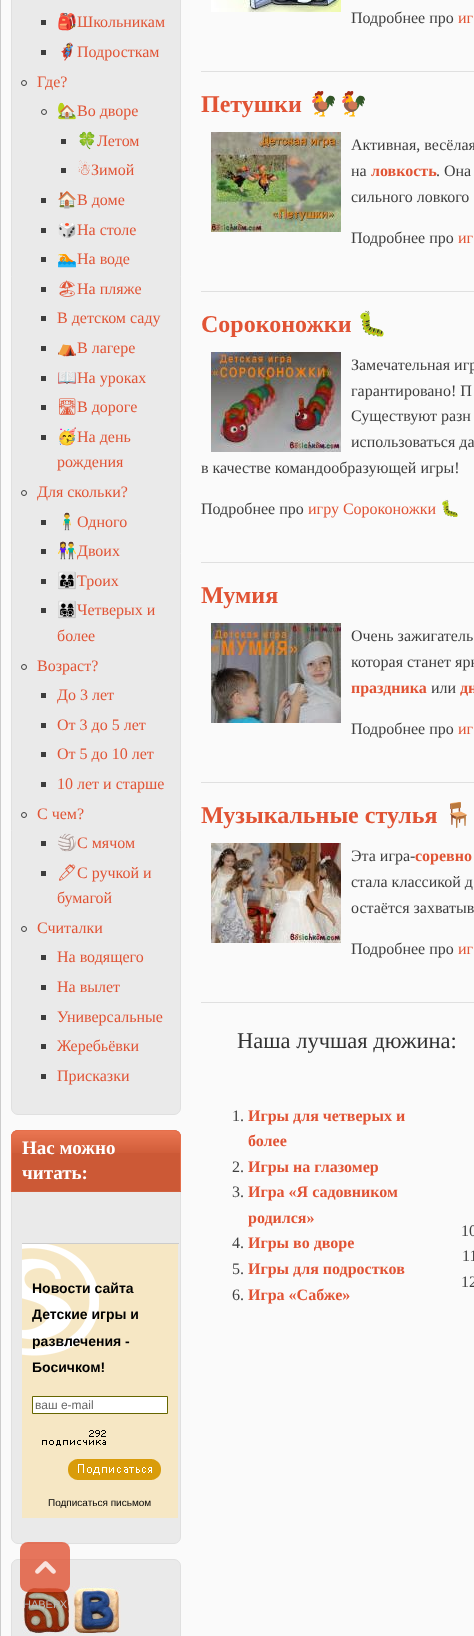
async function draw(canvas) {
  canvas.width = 474
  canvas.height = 1636
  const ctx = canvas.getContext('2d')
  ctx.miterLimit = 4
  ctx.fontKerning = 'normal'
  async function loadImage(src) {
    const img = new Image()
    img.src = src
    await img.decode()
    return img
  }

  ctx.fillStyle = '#fafafa'
  ctx.fillRect(0, 0, 474, 1636)
  ctx.strokeStyle = '#ccc'
  ctx.strokeRect(0.5, -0.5, 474, 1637)
  ctx.fillStyle = '#eaeaea'
  ctx.beginPath()
  ctx.roundRect(11.5, -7.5, 169, 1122, 6.5)
  ctx.fill()
  ctx.strokeStyle = '#e0e0e0'
  ctx.stroke()
  ctx.fillStyle = '#3e3e3e'
  ctx.fillRect(41, 20, 5, 5)
  ctx.font = '16px Noto Color Emoji'
  ctx.fillStyle = '#e15435'
  ctx.fillText('🎒', 57, 27)
  ctx.font = '16px Liberation Serif'
  ctx.fillText('Школьникам', 77, 27)
  ctx.fillStyle = '#3e3e3e'
  ctx.fillRect(41, 50, 5, 5)
  ctx.font = '16px Noto Color Emoji'
  ctx.fillStyle = '#e15435'
  ctx.fillText('🦸', 57, 57)
  ctx.font = '16px Liberation Serif'
  ctx.fillText('Подросткам', 77, 57)
  ctx.beginPath()
  ctx.arc(24, 83, 2.5, 0, 2 * Math.PI)
  ctx.strokeStyle = '#3e3e3e'
  ctx.stroke()
  ctx.fillText('Где?', 37, 87)
  ctx.beginPath()
  ctx.arc(44, 112, 2.5, 0, 2 * Math.PI)
  ctx.stroke()
  ctx.font = '16px Noto Color Emoji'
  ctx.fillText('🏡', 57, 116)
  ctx.font = '16px Liberation Serif'
  ctx.fillText('Во дворе', 77, 116)
  ctx.fillStyle = '#3e3e3e'
  ctx.fillRect(61, 139, 5, 5)
  ctx.font = '16px Noto Color Emoji'
  ctx.fillStyle = '#e15435'
  ctx.fillText('🍀', 77, 146)
  ctx.font = '16px Liberation Serif'
  ctx.fillText('Летом', 97, 146)
  ctx.fillStyle = '#3e3e3e'
  ctx.fillRect(61, 168, 5, 5)
  ctx.font = '16px DejaVu Sans'
  ctx.fillStyle = '#e15435'
  ctx.fillText('☃', 77, 175)
  ctx.font = '16px Liberation Serif'
  ctx.fillText('Зимой', 91, 175)
  ctx.fillStyle = '#3e3e3e'
  ctx.fillRect(41, 198, 5, 5)
  ctx.font = '16px Noto Color Emoji'
  ctx.fillStyle = '#e15435'
  ctx.fillText('🏠', 57, 205)
  ctx.font = '16px Liberation Serif'
  ctx.fillText('В доме', 77, 205)
  ctx.fillStyle = '#3e3e3e'
  ctx.fillRect(41, 228, 5, 5)
  ctx.font = '16px Noto Color Emoji'
  ctx.fillStyle = '#e15435'
  ctx.fillText('🎲', 57, 235)
  ctx.font = '16px Liberation Serif'
  ctx.fillText('На столе', 77, 235)
  ctx.fillStyle = '#3e3e3e'
  ctx.fillRect(41, 257, 5, 5)
  ctx.font = '16px Noto Color Emoji'
  ctx.fillStyle = '#e15435'
  ctx.fillText('🏊', 57, 264)
  ctx.font = '16px Liberation Serif'
  ctx.fillText('На воде', 77, 264)
  ctx.fillStyle = '#3e3e3e'
  ctx.fillRect(41, 287, 5, 5)
  ctx.font = '16px Noto Emoji'
  ctx.fillStyle = '#e15435'
  ctx.fillText('🏖', 57, 294)
  ctx.font = '16px Liberation Serif'
  ctx.fillText('На пляже', 77, 294)
  ctx.fillStyle = '#3e3e3e'
  ctx.fillRect(41, 316, 5, 5)
  ctx.fillStyle = '#e15435'
  ctx.fillText('В детском саду', 57, 323)
  ctx.fillStyle = '#3e3e3e'
  ctx.fillRect(41, 346, 5, 5)
  ctx.font = '16px Noto Color Emoji'
  ctx.fillStyle = '#e15435'
  ctx.fillText('⛺', 57, 353)
  ctx.font = '16px Liberation Serif'
  ctx.fillText('В лагере', 77, 353)
  ctx.fillStyle = '#3e3e3e'
  ctx.fillRect(41, 376, 5, 5)
  ctx.font = '16px Noto Color Emoji'
  ctx.fillStyle = '#e15435'
  ctx.fillText('📖', 57, 383)
  ctx.font = '16px Liberation Serif'
  ctx.fillText('На уроках', 77, 383)
  ctx.fillStyle = '#3e3e3e'
  ctx.fillRect(41, 405, 5, 5)
  ctx.font = '16px Noto Emoji'
  ctx.fillStyle = '#e15435'
  ctx.fillText('🛣', 57, 412)
  ctx.font = '16px Liberation Serif'
  ctx.fillText('В дороге', 77, 412)
  ctx.fillStyle = '#3e3e3e'
  ctx.fillRect(41, 435, 5, 5)
  ctx.font = '16px Noto Color Emoji'
  ctx.fillStyle = '#e15435'
  ctx.fillText('🥳', 57, 442)
  ctx.font = '16px Liberation Serif'
  ctx.fillText('На день', 77, 442)
  ctx.fillText('рождения', 57, 467)
  ctx.beginPath()
  ctx.arc(24, 493, 2.5, 0, 2 * Math.PI)
  ctx.stroke()
  ctx.fillText('Для скольки?', 37, 497)
  ctx.fillStyle = '#3e3e3e'
  ctx.fillRect(41, 520, 5, 5)
  ctx.font = '16px Noto Color Emoji'
  ctx.fillStyle = '#e15435'
  ctx.fillText('🧍‍♂️', 57, 527)
  ctx.font = '16px Liberation Serif'
  ctx.fillText('Одного', 77, 527)
  ctx.fillStyle = '#3e3e3e'
  ctx.fillRect(41, 549, 5, 5)
  ctx.font = '16px Noto Color Emoji'
  ctx.fillStyle = '#e15435'
  ctx.fillText('👫', 57, 556)
  ctx.font = '16px Liberation Serif'
  ctx.fillText('Двоих', 77, 556)
  ctx.fillStyle = '#3e3e3e'
  ctx.fillRect(41, 579, 5, 5)
  ctx.font = '16px Noto Color Emoji'
  ctx.fillStyle = '#e15435'
  ctx.fillText('👨‍👩‍👧', 57, 586)
  ctx.font = '16px Liberation Serif'
  ctx.fillText('Троих', 77, 586)
  ctx.fillStyle = '#3e3e3e'
  ctx.fillRect(41, 608, 5, 5)
  ctx.font = '16px Noto Color Emoji'
  ctx.fillStyle = '#e15435'
  ctx.fillText('👨‍👩‍👧‍👦', 57, 615)
  ctx.font = '16px Liberation Serif'
  ctx.fillText('Четверых и', 77, 615)
  ctx.fillText('более', 57, 641)
  ctx.beginPath()
  ctx.arc(24, 667, 2.5, 0, 2 * Math.PI)
  ctx.stroke()
  ctx.fillText('Возраст?', 37, 671)
  ctx.fillStyle = '#3e3e3e'
  ctx.fillRect(41, 693, 5, 5)
  ctx.fillStyle = '#e15435'
  ctx.fillText('До 3 лет', 57, 700)
  ctx.fillStyle = '#3e3e3e'
  ctx.fillRect(41, 723, 5, 5)
  ctx.fillStyle = '#e15435'
  ctx.fillText('От 3 до 5 лет', 57, 730)
  ctx.fillStyle = '#3e3e3e'
  ctx.fillRect(41, 752, 5, 5)
  ctx.fillStyle = '#e15435'
  ctx.fillText('От 5 до 10 лет', 57, 759)
  ctx.fillStyle = '#3e3e3e'
  ctx.fillRect(41, 782, 5, 5)
  ctx.fillStyle = '#e15435'
  ctx.fillText('10 лет и старше', 57, 789)
  ctx.beginPath()
  ctx.arc(24, 815, 2.5, 0, 2 * Math.PI)
  ctx.stroke()
  ctx.fillText('С чем?', 37, 819)
  ctx.fillStyle = '#3e3e3e'
  ctx.fillRect(41, 841, 5, 5)
  ctx.font = '16px Noto Color Emoji'
  ctx.fillStyle = '#e15435'
  ctx.fillText('🏐', 57, 848)
  ctx.font = '16px Liberation Serif'
  ctx.fillText('С мячом', 77, 848)
  ctx.fillStyle = '#3e3e3e'
  ctx.fillRect(41, 871, 5, 5)
  ctx.font = '16px Noto Emoji'
  ctx.fillStyle = '#e15435'
  ctx.fillText('🖊', 57, 878)
  ctx.font = '16px Liberation Serif'
  ctx.fillText('С ручкой и', 77, 878)
  ctx.fillText('бумагой', 57, 903)
  ctx.beginPath()
  ctx.arc(24, 929, 2.5, 0, 2 * Math.PI)
  ctx.stroke()
  ctx.fillText('Считалки', 37, 933)
  ctx.fillStyle = '#3e3e3e'
  ctx.fillRect(41, 955, 5, 5)
  ctx.fillStyle = '#e15435'
  ctx.fillText('На водящего', 57, 962)
  ctx.fillStyle = '#3e3e3e'
  ctx.fillRect(41, 985, 5, 5)
  ctx.fillStyle = '#e15435'
  ctx.fillText('На вылет', 57, 992)
  ctx.fillStyle = '#3e3e3e'
  ctx.fillRect(41, 1015, 5, 5)
  ctx.fillStyle = '#e15435'
  ctx.fillText('Универсальные', 57, 1022)
  ctx.fillStyle = '#3e3e3e'
  ctx.fillRect(41, 1044, 5, 5)
  ctx.fillStyle = '#e15435'
  ctx.fillText('Жеребьёвки', 57, 1051)
  ctx.fillStyle = '#3e3e3e'
  ctx.fillRect(41, 1074, 5, 5)
  ctx.fillStyle = '#e15435'
  ctx.fillText('Присказки', 57, 1081)
  ctx.fillStyle = '#eaeaea'
  ctx.beginPath()
  ctx.roundRect(11.5, 1130.5, 169, 413, 6.5)
  ctx.fill()
  ctx.strokeStyle = '#e0e0e0'
  ctx.stroke()
  ctx.fillStyle = '#cc5936'
  ctx.beginPath()
  ctx.roundRect(11, 1130, 170, 62, [7, 7, 0, 0])
  ctx.fill()
  ctx.drawImage(await loadImage('image0.png'), 11, 1131, 170, 22)
  ctx.fillStyle = '#e56f4b'
  ctx.beginPath()
  ctx.moveTo(18, 1130)
  ctx.bezierCurveTo(16, 1130, 14, 1131, 13, 1132)
  ctx.lineTo(14, 1133)
  ctx.lineTo(17, 1131)
  ctx.lineTo(175, 1131)
  ctx.lineTo(178, 1133)
  ctx.lineTo(179, 1132)
  ctx.bezierCurveTo(178, 1131, 176, 1130, 174, 1130)
  ctx.closePath()
  ctx.fill()
  ctx.beginPath()
  ctx.moveTo(181, 1192)
  ctx.lineTo(181, 1137)
  ctx.bezierCurveTo(181, 1135, 180, 1133, 179, 1132)
  ctx.lineTo(178, 1133)
  ctx.bezierCurveTo(179, 1134, 180, 1136, 180, 1137)
  ctx.lineTo(180, 1191)
  ctx.closePath()
  ctx.fill()
  ctx.fillStyle = '#d0613f'
  ctx.beginPath()
  ctx.moveTo(181, 1192)
  ctx.lineTo(180, 1191)
  ctx.lineTo(12, 1191)
  ctx.lineTo(11, 1192)
  ctx.closePath()
  ctx.fill()
  ctx.fillStyle = '#e56f4b'
  ctx.beginPath()
  ctx.moveTo(11, 1192)
  ctx.lineTo(12, 1191)
  ctx.lineTo(12, 1137)
  ctx.bezierCurveTo(12, 1136, 13, 1134, 14, 1133)
  ctx.lineTo(13, 1132)
  ctx.bezierCurveTo(12, 1133, 11, 1135, 11, 1137)
  ctx.closePath()
  ctx.fill()
  ctx.font = 'bold 19px Liberation Serif'
  ctx.fillStyle = '#fff'
  ctx.fillText('Нас можно', 22, 1154)
  ctx.fillText('читать:', 22, 1179)
  ctx.fillStyle = '#f6e7c4'
  ctx.fillRect(22, 1244, 156, 274)
  ctx.drawImage(await loadImage('image1.png'), 22, 1244, 77, 112)
  ctx.fillStyle = '#ccc'
  ctx.fillRect(22, 1243, 157, 1)
  ctx.font = 'bold 14px Liberation Sans'
  ctx.fillStyle = '#000'
  ctx.fillText('Новости сайта', 32, 1293)
  ctx.fillText('Детские игры и', 32, 1319)
  ctx.fillText('развлечения -', 32, 1346)
  ctx.fillText('Босичком!', 32, 1372)
  ctx.fillStyle = '#fff'
  ctx.beginPath()
  ctx.rect(32.5, 1396.5, 135, 17)
  ctx.fill()
  ctx.strokeStyle = '#660'
  ctx.stroke()
  ctx.font = '12px Liberation Sans'
  ctx.fillStyle = '#666'
  ctx.fillText('ваш e-mail', 35, 1409)
  ctx.drawImage(await loadImage('image2.png'), 42, 1430, 64, 16)
  ctx.drawImage(await loadImage('image3.png'), 68, 1459, 93, 21)
  ctx.font = '10px Liberation Sans'
  ctx.fillStyle = '#000'
  ctx.fillText('Подписаться письмом', 48, 1506)
  ctx.fillStyle = '#eaeaea'
  ctx.beginPath()
  ctx.roundRect(11.5, 1559.5, 169, 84, 6.5)
  ctx.fill()
  ctx.strokeStyle = '#e0e0e0'
  ctx.stroke()
  ctx.drawImage(await loadImage('image4.png'), 22, 1586, 49, 48)
  ctx.drawImage(await loadImage('image5.png'), 72, 1586, 49, 48)
  ctx.fillStyle = '#e0e0e0'
  ctx.fillRect(201, 71, 273, 1)
  ctx.drawImage(await loadImage('image6.png'), 211, 0, 130, 12)
  ctx.font = '16px Liberation Serif'
  ctx.fillStyle = '#3e3e3e'
  ctx.fillText('Подробнее про', 351, 23)
  ctx.fillStyle = '#e15435'
  ctx.fillText('иг', 458, 23)
  ctx.fillStyle = '#e0e0e0'
  ctx.fillRect(201, 291, 273, 1)
  ctx.font = 'bold 24px Liberation Serif'
  ctx.fillStyle = '#e15435'
  ctx.fillText('Петушки', 201, 112)
  ctx.font = 'bold 24px Noto Color Emoji'
  ctx.fillText('🐓🐓', 308, 112)
  ctx.drawImage(await loadImage('image7.png'), 211, 132, 130, 100)
  ctx.font = '16px Liberation Serif'
  ctx.fillStyle = '#3e3e3e'
  ctx.fillText('Активная, весёлая', 351, 150)
  ctx.fillText('на', 351, 176)
  ctx.font = 'bold 16px Liberation Serif'
  ctx.fillStyle = '#e15435'
  ctx.fillText('ловкость', 371, 176)
  ctx.font = '16px Liberation Serif'
  ctx.fillStyle = '#3e3e3e'
  ctx.fillText('. Она', 436, 176)
  ctx.fillText('сильного ловкого', 351, 202)
  ctx.fillText('Подробнее про', 351, 243)
  ctx.fillStyle = '#e15435'
  ctx.fillText('иг', 458, 243)
  ctx.fillStyle = '#e0e0e0'
  ctx.fillRect(201, 562, 273, 1)
  ctx.font = 'bold 24px Liberation Serif'
  ctx.fillStyle = '#e15435'
  ctx.fillText('Сороконожки', 201, 332)
  ctx.font = 'bold 24px Noto Color Emoji'
  ctx.fillText('🐛', 357, 332)
  ctx.drawImage(await loadImage('image8.png'), 211, 352, 130, 100)
  ctx.font = '16px Liberation Serif'
  ctx.fillStyle = '#3e3e3e'
  ctx.fillText('Замечательная игр', 351, 370)
  ctx.fillText('гарантировано! П', 351, 396)
  ctx.fillText('Существуют разн', 351, 421)
  ctx.fillText('использоваться да', 351, 447)
  ctx.fillText('в качестве командообразующей игры!', 201, 473)
  ctx.fillText('Подробнее про', 201, 514)
  ctx.fillStyle = '#e15435'
  ctx.fillText('игру Сороконожки', 308, 514)
  ctx.font = '16px Noto Color Emoji'
  ctx.fillText('🐛', 440, 514)
  ctx.fillStyle = '#e0e0e0'
  ctx.fillRect(201, 782, 273, 1)
  ctx.font = 'bold 24px Liberation Serif'
  ctx.fillStyle = '#e15435'
  ctx.fillText('Мумия', 201, 603)
  ctx.drawImage(await loadImage('image9.png'), 211, 623, 130, 100)
  ctx.font = '16px Liberation Serif'
  ctx.fillStyle = '#3e3e3e'
  ctx.fillText('Очень зажигатель', 351, 641)
  ctx.fillText('которая станет ярк', 351, 667)
  ctx.font = 'bold 16px Liberation Serif'
  ctx.fillStyle = '#e15435'
  ctx.fillText('праздника', 351, 693)
  ctx.font = '16px Liberation Serif'
  ctx.fillStyle = '#3e3e3e'
  ctx.fillText('или', 431, 693)
  ctx.font = 'bold 16px Liberation Serif'
  ctx.fillStyle = '#e15435'
  ctx.fillText('дн', 460, 693)
  ctx.font = '16px Liberation Serif'
  ctx.fillStyle = '#3e3e3e'
  ctx.fillText('Подробнее про', 351, 734)
  ctx.fillStyle = '#e15435'
  ctx.fillText('иг', 458, 734)
  ctx.fillStyle = '#e0e0e0'
  ctx.fillRect(201, 1002, 273, 1)
  ctx.font = 'bold 24px Liberation Serif'
  ctx.fillStyle = '#e15435'
  ctx.fillText('Музыкальные стулья', 201, 823)
  ctx.font = 'bold 24px Noto Color Emoji'
  ctx.fillText('🪑', 443, 823)
  ctx.drawImage(await loadImage('image10.png'), 211, 843, 130, 100)
  ctx.font = '16px Liberation Serif'
  ctx.fillStyle = '#3e3e3e'
  ctx.fillText('Эта игра-', 351, 861)
  ctx.font = 'bold 16px Liberation Serif'
  ctx.fillStyle = '#e15435'
  ctx.fillText('соревно', 415, 861)
  ctx.font = '16px Liberation Serif'
  ctx.fillStyle = '#3e3e3e'
  ctx.fillText('стала классикой д', 351, 887)
  ctx.fillText('остаётся захватыв', 351, 913)
  ctx.fillText('Подробнее про', 351, 954)
  ctx.fillStyle = '#e15435'
  ctx.fillText('иг', 458, 954)
  ctx.font = '22.5px Liberation Serif'
  ctx.fillStyle = '#323232'
  ctx.fillText('Наша лучшая дюжина:', 237, 1048)
  ctx.font = '16px Liberation Serif'
  ctx.fillStyle = '#3e3e3e'
  ctx.fillText('1.', 232, 1121)
  ctx.font = 'bold 16px Liberation Serif'
  ctx.fillStyle = '#e15435'
  ctx.fillText('Игры для четверых и', 248, 1121)
  ctx.fillText('более', 248, 1146)
  ctx.font = '16px Liberation Serif'
  ctx.fillStyle = '#3e3e3e'
  ctx.fillText('2.', 232, 1172)
  ctx.font = 'bold 16px Liberation Serif'
  ctx.fillStyle = '#e15435'
  ctx.fillText('Игры на глазомер', 248, 1172)
  ctx.font = '16px Liberation Serif'
  ctx.fillStyle = '#3e3e3e'
  ctx.fillText('3.', 232, 1197)
  ctx.font = 'bold 16px Liberation Serif'
  ctx.fillStyle = '#e15435'
  ctx.fillText('Игра «Я садовником', 248, 1197)
  ctx.fillText('родился»', 248, 1223)
  ctx.font = '16px Liberation Serif'
  ctx.fillStyle = '#3e3e3e'
  ctx.fillText('4.', 232, 1248)
  ctx.font = 'bold 16px Liberation Serif'
  ctx.fillStyle = '#e15435'
  ctx.fillText('Игры во дворе', 248, 1248)
  ctx.font = '16px Liberation Serif'
  ctx.fillStyle = '#3e3e3e'
  ctx.fillText('5.', 232, 1274)
  ctx.font = 'bold 16px Liberation Serif'
  ctx.fillStyle = '#e15435'
  ctx.fillText('Игры для подростков', 248, 1274)
  ctx.font = '16px Liberation Serif'
  ctx.fillStyle = '#3e3e3e'
  ctx.fillText('6.', 232, 1300)
  ctx.font = 'bold 16px Liberation Serif'
  ctx.fillStyle = '#e15435'
  ctx.fillText('Игра «Сабже»', 248, 1300)
  ctx.font = '16px Liberation Serif'
  ctx.fillStyle = '#3e3e3e'
  ctx.fillText('10', 461, 1236)
  ctx.fillText('11', 462, 1261)
  ctx.fillText('12', 461, 1287)
  ctx.fillStyle = '#e15435cc'
  ctx.beginPath()
  ctx.roundRect(20, 1542, 50, 50, 8)
  ctx.fill()
  ctx.drawImage(await loadImage('image11.png'), 35, 1561, 21, 13)
  ctx.font = '11px Liberation Sans'
  ctx.fillStyle = '#bbb'
  ctx.fillText('НАВЕРХ', 23, 1608)
}

draw(document.querySelector('canvas'))
